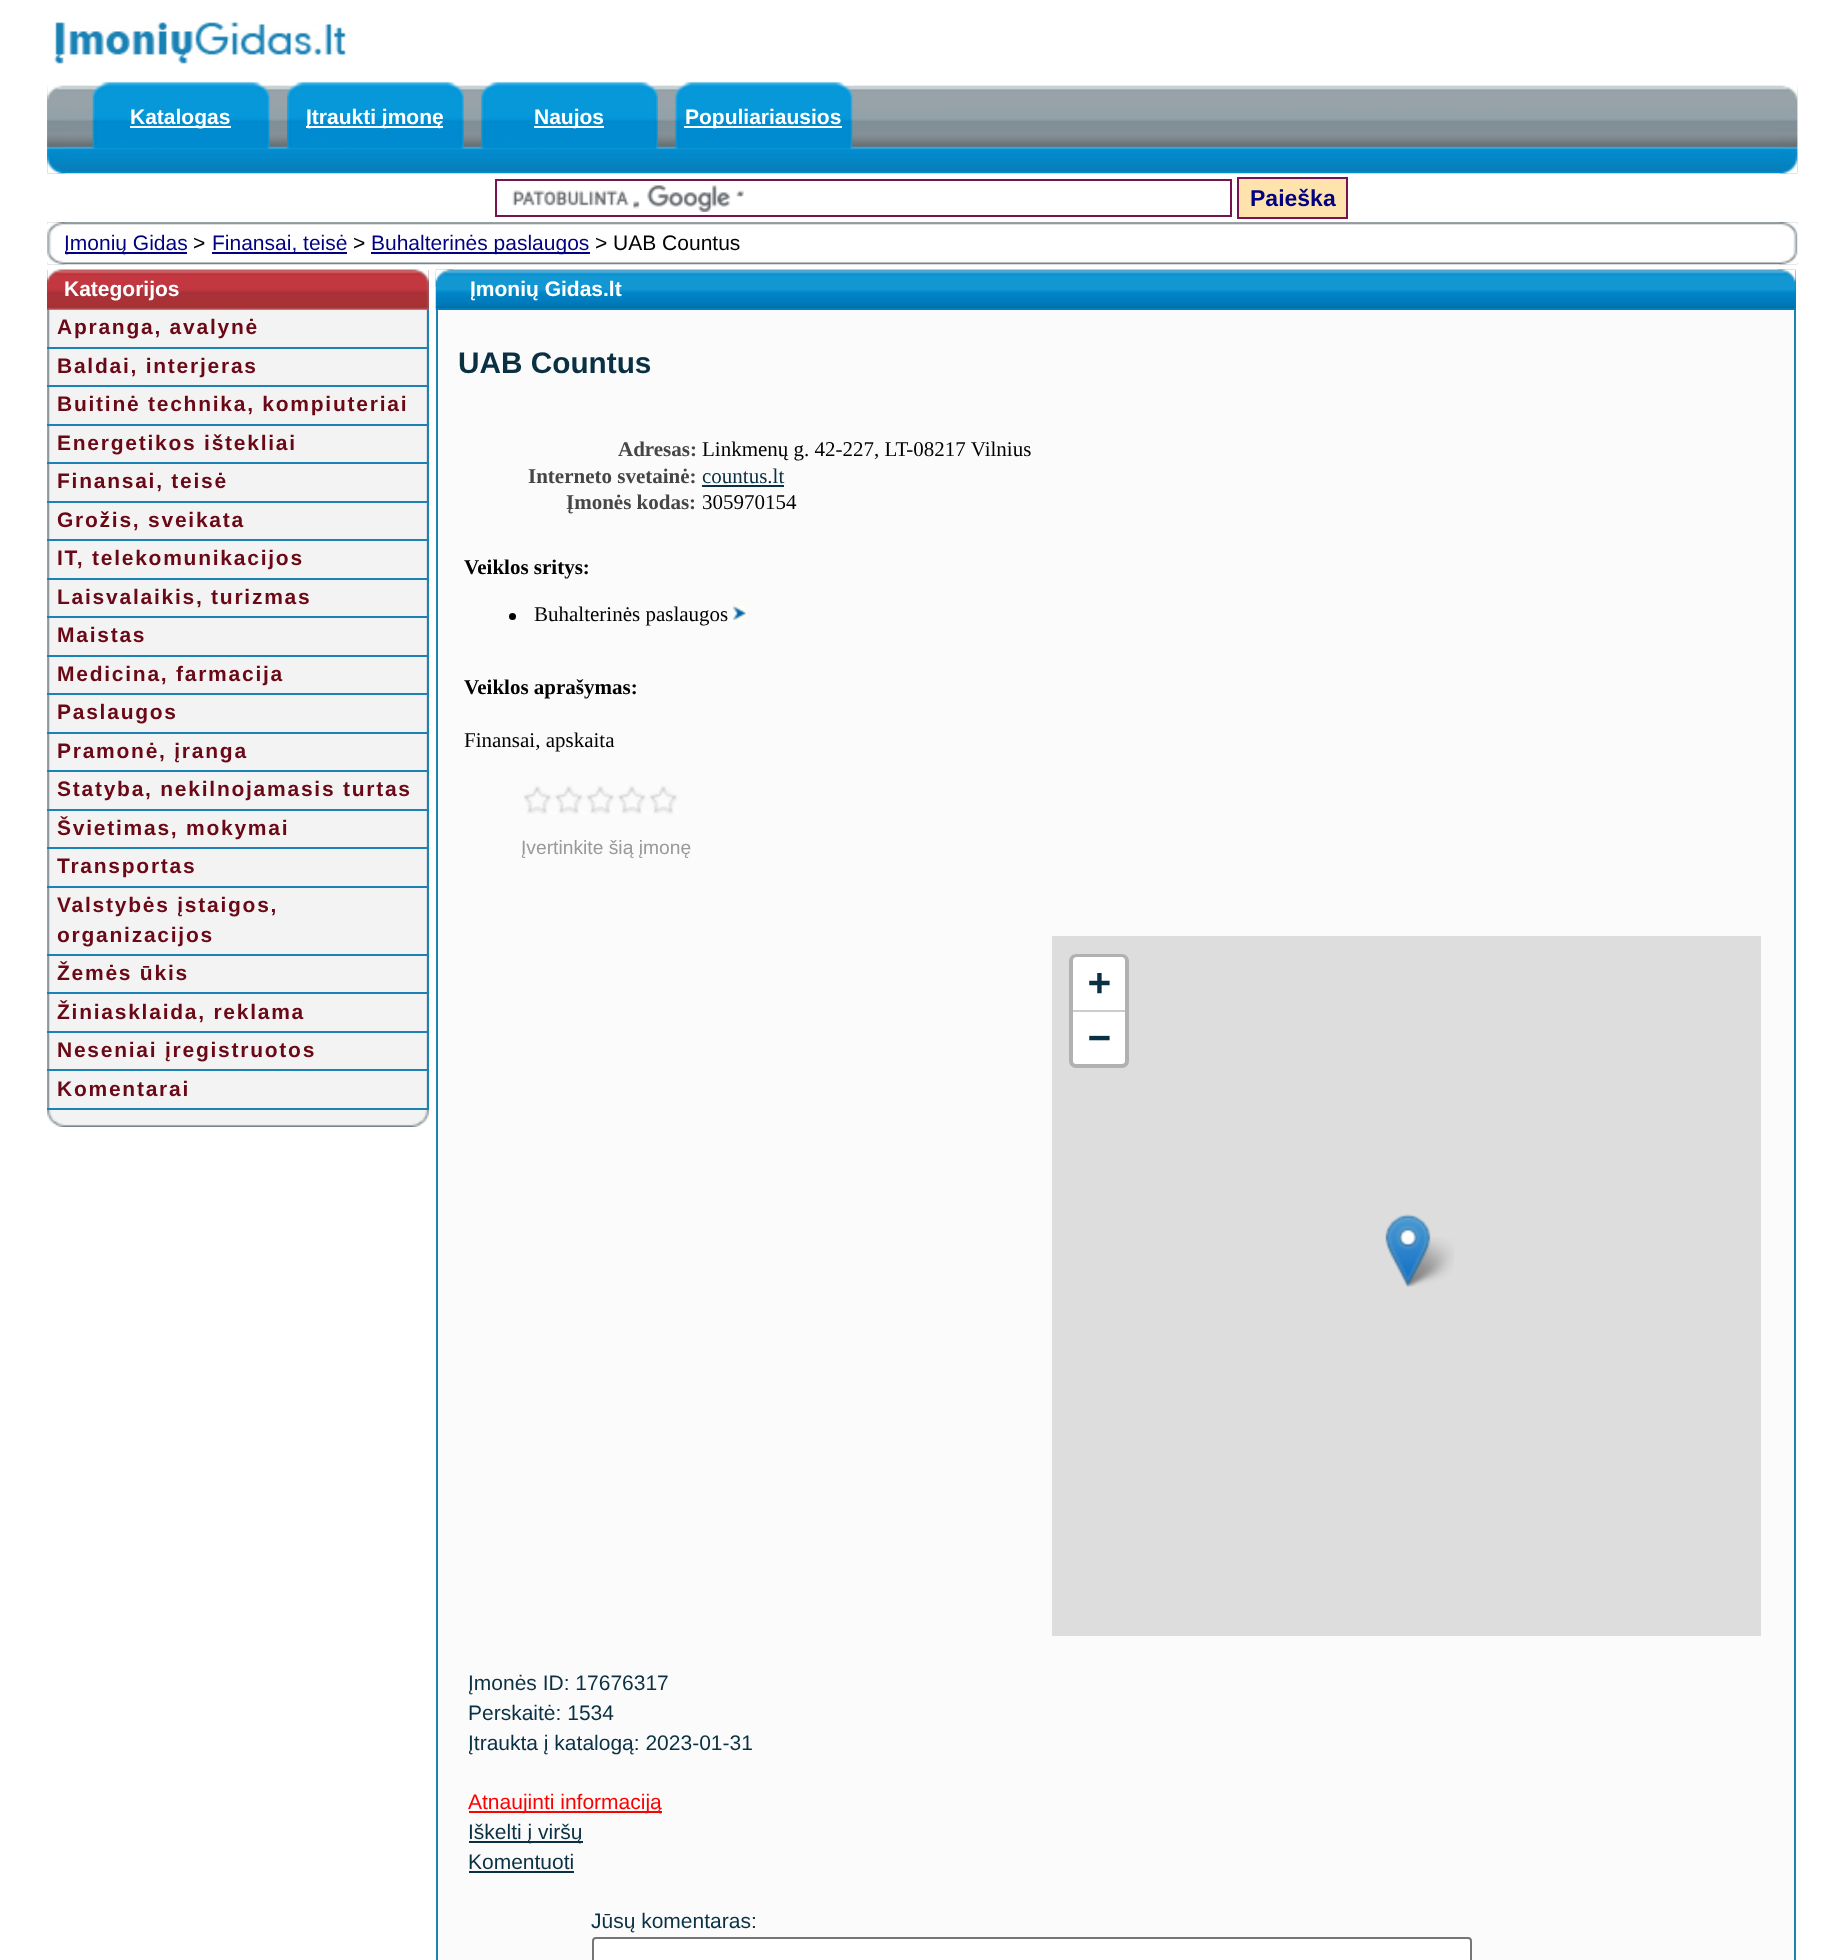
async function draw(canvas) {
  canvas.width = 1842
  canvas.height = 1960
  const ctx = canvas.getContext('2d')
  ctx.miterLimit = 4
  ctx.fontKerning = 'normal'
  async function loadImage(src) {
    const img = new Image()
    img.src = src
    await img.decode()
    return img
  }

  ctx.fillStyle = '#fff'
  ctx.fillRect(0, 0, 1842, 1960)
  ctx.drawImage(await loadImage('image0.png'), 54, 22, 293, 42)
  ctx.drawImage(await loadImage('image1.png'), 47, 81, 1751, 93)
  ctx.drawImage(await loadImage('image2.png'), 47, 81, 18, 93)
  ctx.drawImage(await loadImage('image3.png'), 92, 81, 178, 68)
  ctx.fillStyle = '#feffff'
  ctx.fillRect(130, 126, 101, 2)
  ctx.font = 'bold 21px Liberation Sans'
  ctx.fillStyle = '#fff'
  ctx.fillText('Katalogas', 130, 124)
  ctx.drawImage(await loadImage('image4.png'), 287, 81, 177, 68)
  ctx.fillStyle = '#feffff'
  ctx.fillRect(306, 126, 137, 2)
  ctx.fillStyle = '#fff'
  ctx.fillText('Įtraukti įmonę', 306, 124)
  ctx.drawImage(await loadImage('image5.png'), 481, 81, 177, 68)
  ctx.fillStyle = '#feffff'
  ctx.fillRect(534, 126, 70, 2)
  ctx.fillStyle = '#fff'
  ctx.fillText('Naujos', 534, 124)
  ctx.drawImage(await loadImage('image6.png'), 675, 81, 178, 68)
  ctx.fillStyle = '#feffff'
  ctx.fillRect(684, 126, 158, 2)
  ctx.fillStyle = '#fff'
  ctx.fillText('Populiariausios', 685, 124)
  ctx.drawImage(await loadImage('image7.png'), 1779, 85, 19, 89)
  ctx.drawImage(await loadImage('image8.png'), 512, 185, 232, 27)
  ctx.strokeStyle = '#781351'
  ctx.lineWidth = 2
  ctx.strokeRect(496, 180, 735, 36)
  ctx.fillStyle = '#fee3ad'
  ctx.beginPath()
  ctx.rect(1238, 178, 109, 40)
  ctx.fill()
  ctx.stroke()
  ctx.font = 'bold 23px Liberation Sans'
  ctx.fillStyle = '#000080'
  ctx.fillText('Paieška', 1250, 206)
  ctx.drawImage(await loadImage('image9.png'), 47, 222, 1751, 43)
  ctx.fillRect(65, 252, 122, 2)
  ctx.font = '21px Liberation Sans'
  ctx.fillText('Įmonių Gidas', 64, 250)
  ctx.drawImage(await loadImage('image10.png'), 47, 222, 18, 43)
  ctx.fillStyle = '#000'
  ctx.fillText('>', 193, 250)
  ctx.fillStyle = '#000080'
  ctx.fillRect(212, 252, 135, 2)
  ctx.fillText('Finansai, teisė', 212, 250)
  ctx.fillStyle = '#000'
  ctx.fillText('>', 353, 250)
  ctx.fillStyle = '#000080'
  ctx.fillRect(371, 252, 219, 2)
  ctx.fillText('Buhalterinės paslaugos', 371, 250)
  ctx.fillStyle = '#000'
  ctx.fillText('> UAB Countus', 595, 250)
  ctx.drawImage(await loadImage('image11.png'), 1779, 222, 19, 43)
  ctx.drawImage(await loadImage('image12.png'), 47, 1110, 382, 17)
  ctx.fillStyle = '#c33840'
  ctx.fillRect(47, 270, 382, 40)
  ctx.drawImage(await loadImage('image13.png'), 47, 269, 382, 41)
  ctx.font = 'bold 21px Liberation Sans'
  ctx.fillStyle = '#fff'
  ctx.fillText('Kategorijos', 64, 296)
  ctx.drawImage(await loadImage('image14.png'), 47, 309, 382, 799)
  ctx.fillStyle = '#1a82b5'
  ctx.fillRect(427, 310, 2, 800)
  ctx.fillRect(47, 347, 380, 2)
  ctx.letterSpacing = '1.75px'
  ctx.fillStyle = '#6a0815'
  ctx.fillText('Apranga, avalynė', 57, 334)
  ctx.fillStyle = '#1a82b5'
  ctx.fillRect(47, 385, 380, 2)
  ctx.fillStyle = '#6a0815'
  ctx.fillText('Baldai, interjeras', 57, 373)
  ctx.fillStyle = '#1a82b5'
  ctx.fillRect(47, 424, 380, 2)
  ctx.fillStyle = '#6a0815'
  ctx.fillText('Buitinė technika, kompiuteriai', 57, 411)
  ctx.fillStyle = '#1a82b5'
  ctx.fillRect(47, 462, 380, 2)
  ctx.fillStyle = '#6a0815'
  ctx.fillText('Energetikos ištekliai', 57, 450)
  ctx.fillStyle = '#1a82b5'
  ctx.fillRect(47, 501, 380, 2)
  ctx.fillStyle = '#6a0815'
  ctx.fillText('Finansai, teisė', 57, 488)
  ctx.fillStyle = '#1a82b5'
  ctx.fillRect(47, 539, 380, 2)
  ctx.fillStyle = '#6a0815'
  ctx.fillText('Grožis, sveikata', 57, 527)
  ctx.fillStyle = '#1a82b5'
  ctx.fillRect(47, 578, 380, 2)
  ctx.fillStyle = '#6a0815'
  ctx.fillText('IT, telekomunikacijos', 57, 565)
  ctx.fillStyle = '#1a82b5'
  ctx.fillRect(47, 616, 380, 2)
  ctx.fillStyle = '#6a0815'
  ctx.fillText('Laisvalaikis, turizmas', 57, 604)
  ctx.fillStyle = '#1a82b5'
  ctx.fillRect(47, 655, 380, 2)
  ctx.fillStyle = '#6a0815'
  ctx.fillText('Maistas', 57, 642)
  ctx.fillStyle = '#1a82b5'
  ctx.fillRect(47, 693, 380, 2)
  ctx.fillStyle = '#6a0815'
  ctx.fillText('Medicina, farmacija', 57, 681)
  ctx.fillStyle = '#1a82b5'
  ctx.fillRect(47, 732, 380, 2)
  ctx.fillStyle = '#6a0815'
  ctx.fillText('Paslaugos', 57, 719)
  ctx.fillStyle = '#1a82b5'
  ctx.fillRect(47, 770, 380, 2)
  ctx.fillStyle = '#6a0815'
  ctx.fillText('Pramonė, įranga', 57, 758)
  ctx.fillStyle = '#1a82b5'
  ctx.fillRect(47, 809, 380, 2)
  ctx.fillStyle = '#6a0815'
  ctx.fillText('Statyba, nekilnojamasis turtas', 57, 796)
  ctx.fillStyle = '#1a82b5'
  ctx.fillRect(47, 847, 380, 2)
  ctx.fillStyle = '#6a0815'
  ctx.fillText('Švietimas, mokymai', 57, 835)
  ctx.fillStyle = '#1a82b5'
  ctx.fillRect(47, 886, 380, 2)
  ctx.fillStyle = '#6a0815'
  ctx.fillText('Transportas', 57, 873)
  ctx.fillStyle = '#1a82b5'
  ctx.fillRect(47, 954, 380, 2)
  ctx.fillStyle = '#6a0815'
  ctx.fillText('Valstybės įstaigos,', 57, 912)
  ctx.fillText('organizacijos', 57, 942)
  ctx.fillStyle = '#1a82b5'
  ctx.fillRect(47, 992, 380, 2)
  ctx.fillStyle = '#6a0815'
  ctx.fillText('Žemės ūkis', 57, 980)
  ctx.fillStyle = '#1a82b5'
  ctx.fillRect(47, 1031, 380, 2)
  ctx.fillStyle = '#6a0815'
  ctx.fillText('Žiniasklaida, reklama', 57, 1019)
  ctx.fillStyle = '#1a82b5'
  ctx.fillRect(47, 1069, 380, 2)
  ctx.fillStyle = '#6a0815'
  ctx.fillText('Neseniai įregistruotos', 57, 1057)
  ctx.fillStyle = '#1a82b5'
  ctx.fillRect(47, 1108, 380, 2)
  ctx.fillStyle = '#6a0815'
  ctx.fillText('Komentarai', 57, 1096)
  ctx.fillStyle = '#0083c5'
  ctx.fillRect(436, 270, 1360, 40)
  ctx.drawImage(await loadImage('image17.png'), 435, 269, 1361, 41)
  ctx.drawImage(await loadImage('image15.png'), 435, 269, 19, 18)
  ctx.drawImage(await loadImage('image16.png'), 1778, 269, 18, 18)
  ctx.letterSpacing = '0px'
  ctx.fillStyle = '#fff'
  ctx.fillText('Įmonių Gidas.lt', 470, 296)
  ctx.fillStyle = '#fbfbfb'
  ctx.fillRect(438, 310, 1356, 1650)
  ctx.fillStyle = '#1a82b5'
  ctx.fillRect(1794, 310, 2, 1650)
  ctx.fillRect(436, 310, 2, 1650)
  ctx.font = 'bold 29.75px Liberation Sans'
  ctx.fillStyle = '#0a3043'
  ctx.fillText('UAB Countus', 458, 373)
  ctx.font = 'bold 21px Liberation Serif'
  ctx.fillStyle = '#464646'
  ctx.fillText('Adresas:', 618, 456)
  ctx.font = '21px Liberation Serif'
  ctx.fillStyle = '#000'
  ctx.fillText('Linkmenų g. 42-227, LT-08217 Vilnius', 702, 456)
  ctx.font = 'bold 21px Liberation Serif'
  ctx.fillStyle = '#464646'
  ctx.fillText('Interneto svetainė:', 528, 483)
  ctx.font = '21px Liberation Serif'
  ctx.fillStyle = '#0a3043'
  ctx.fillText('countus.lt', 702, 483)
  ctx.fillRect(702, 485, 82, 2)
  ctx.font = 'bold 21px Liberation Serif'
  ctx.fillStyle = '#464646'
  ctx.fillText('Įmonės kodas:', 566, 509)
  ctx.font = '21px Liberation Serif'
  ctx.fillStyle = '#000'
  ctx.fillText('305970154', 702, 509)
  ctx.font = 'bold 21px Liberation Serif'
  ctx.fillText('Veiklos sritys:', 464, 574)
  ctx.beginPath()
  ctx.arc(512.5, 616.5, 3.5, 0, 2 * Math.PI)
  ctx.fill()
  ctx.font = '21px Liberation Serif'
  ctx.fillText('Buhalterinės paslaugos', 534, 621)
  ctx.drawImage(await loadImage('image18.png'), 733, 605, 13, 16)
  ctx.font = 'bold 21px Liberation Serif'
  ctx.fillText('Veiklos aprašymas:', 464, 694)
  ctx.font = '21px Liberation Serif'
  ctx.fillText('Finansai, apskaita', 464, 747)
  ctx.drawImage(await loadImage('image19.png'), 523, 785, 155, 30)
  ctx.font = '19.25px Liberation Sans'
  ctx.fillStyle = '#999'
  ctx.fillText('Įvertinkite šią įmonę', 521, 854)
  ctx.fillStyle = '#ddd'
  ctx.fillRect(1052, 936, 709, 700)
  ctx.beginPath()
  ctx.roundRect(1071, 956, 56, 110, 5)
  ctx.strokeStyle = '#b1b1b1'
  ctx.lineWidth = 4
  ctx.stroke()
  ctx.fillStyle = '#fff'
  ctx.beginPath()
  ctx.roundRect(1073, 957, 52, 55, [4, 4, 0, 0])
  ctx.fill()
  ctx.fillStyle = '#ccc'
  ctx.fillRect(1073, 1010, 52, 2)
  ctx.font = 'bold 38px DejaVu Sans Mono'
  ctx.fillStyle = '#0a3043'
  ctx.fillText('+', 1088, 995)
  ctx.fillStyle = '#fff'
  ctx.beginPath()
  ctx.roundRect(1073, 1012, 52, 52, [0, 0, 4, 4])
  ctx.fill()
  ctx.fillStyle = '#0a3043'
  ctx.fillText('−', 1088, 1050)
  ctx.drawImage(await loadImage('image21.png'), 1401, 1237, 53, 50)
  ctx.drawImage(await loadImage('image20.png'), 1385, 1214, 46, 73)
  ctx.font = '21px Liberation Sans'
  ctx.fillText('Įmonės ID: 17676317', 468, 1690)
  ctx.fillText('Perskaitė: 1534', 468, 1720)
  ctx.fillText('Įtraukta į katalogą: 2023-01-31', 468, 1750)
  ctx.fillStyle = '#f00'
  ctx.fillRect(469, 1811, 193, 2)
  ctx.fillText('Atnaujinti informaciją', 468, 1809)
  ctx.fillStyle = '#0a3043'
  ctx.fillRect(469, 1841, 114, 2)
  ctx.fillText('Iškelti į viršų', 468, 1839)
  ctx.fillText('Komentuoti', 468, 1869)
  ctx.fillRect(469, 1871, 105, 2)
  ctx.fillText('Jūsų komentaras:', 591, 1928)
  ctx.fillStyle = '#fff'
  ctx.beginPath()
  ctx.roundRect(593, 1938, 878, 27, 3)
  ctx.fill()
  ctx.strokeStyle = '#767676'
  ctx.lineWidth = 2
  ctx.stroke()
}

draw(document.querySelector('canvas'))
